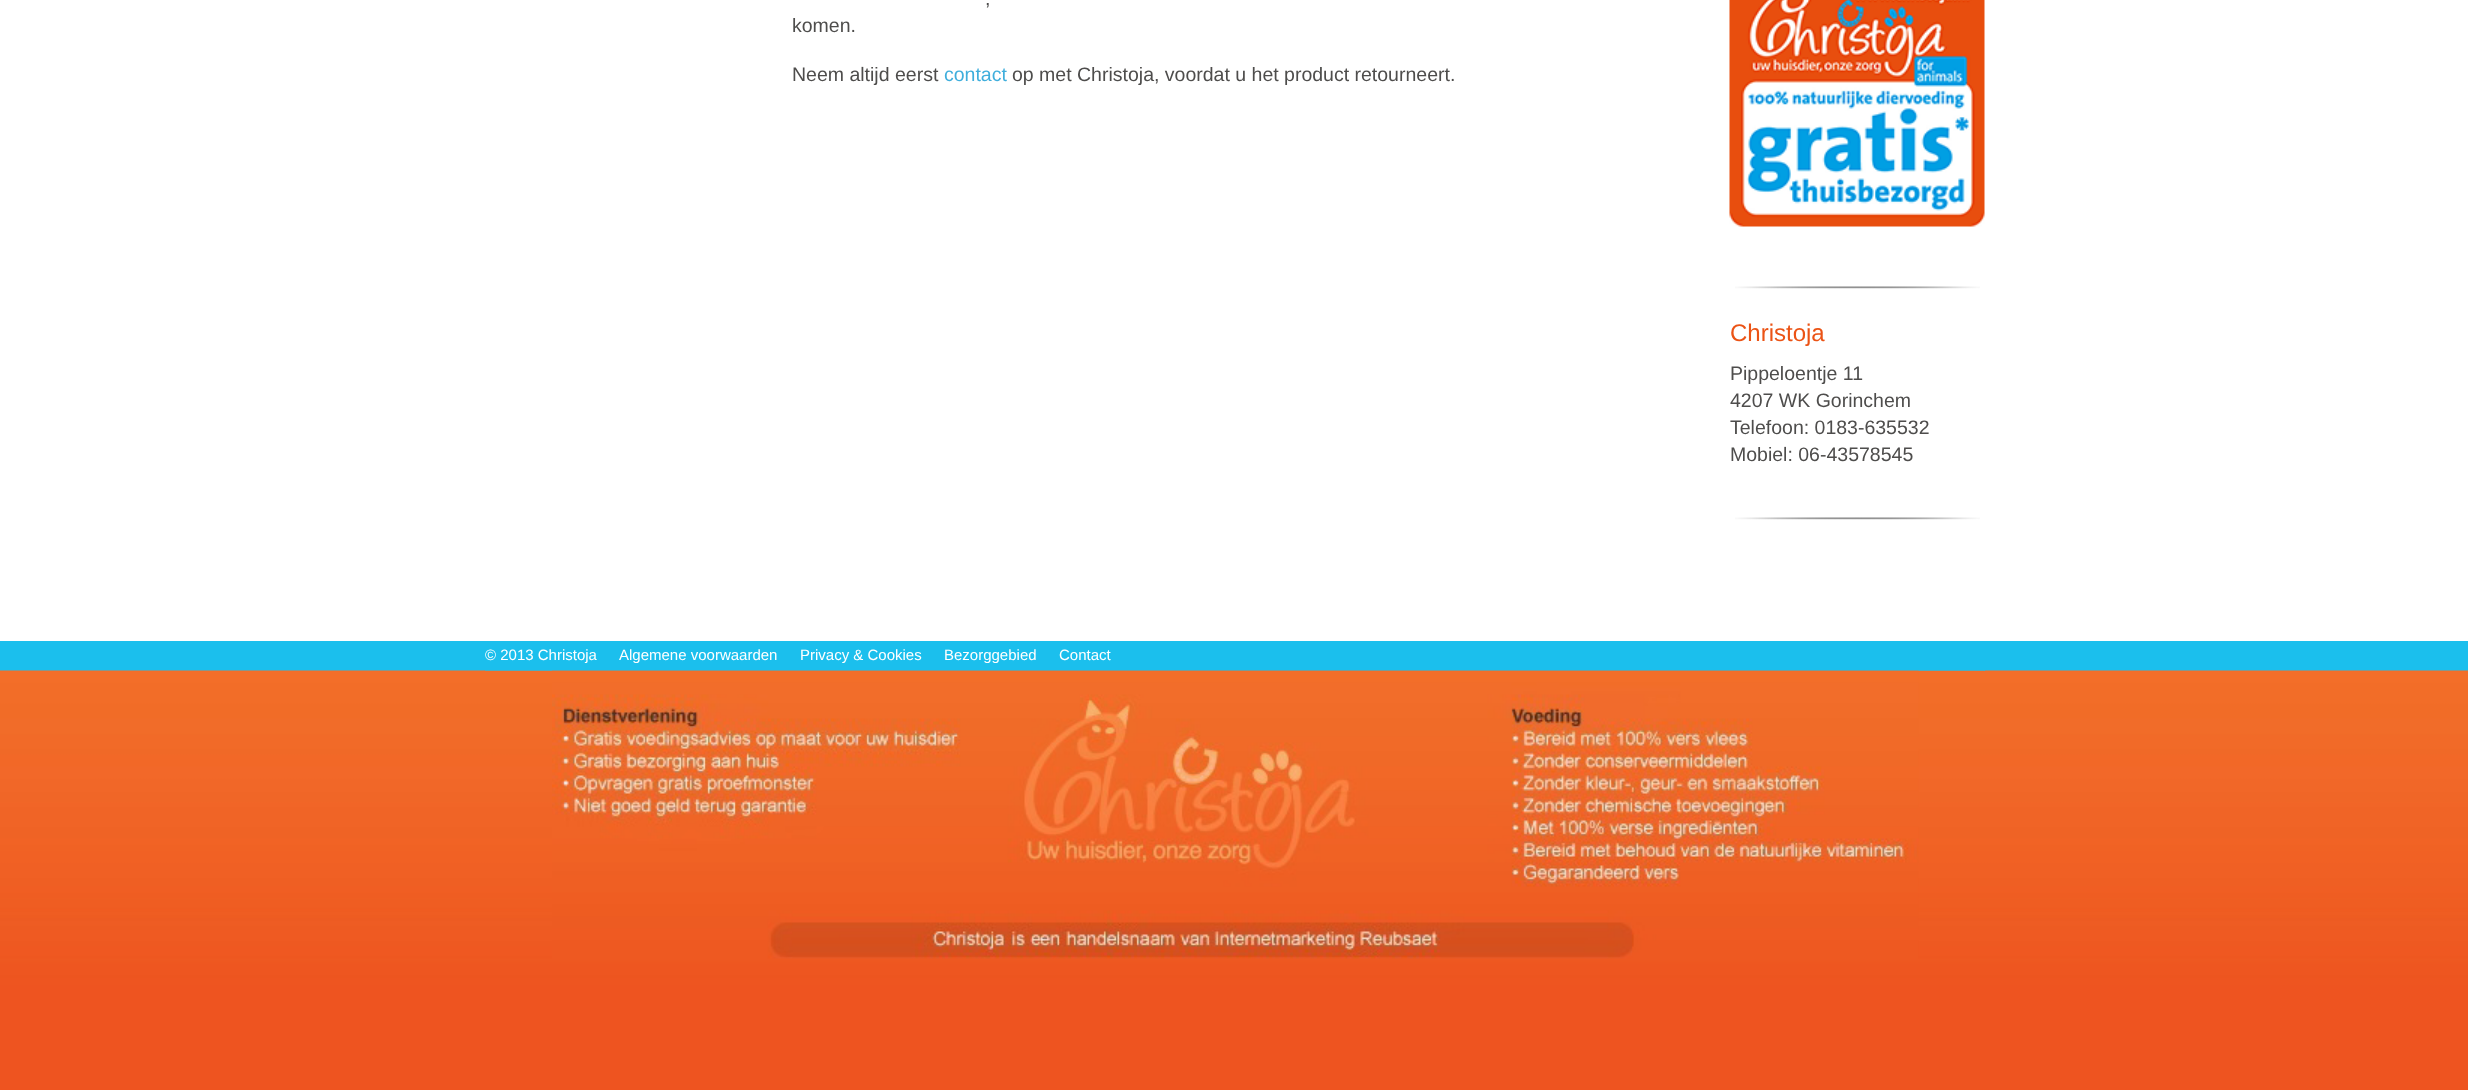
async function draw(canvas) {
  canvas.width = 2468
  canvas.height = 1090
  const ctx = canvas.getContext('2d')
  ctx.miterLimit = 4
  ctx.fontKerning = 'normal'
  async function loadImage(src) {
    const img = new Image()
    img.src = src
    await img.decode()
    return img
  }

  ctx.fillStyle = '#fff'
  ctx.fillRect(0, 0, 2468, 1090)
  ctx.font = '19.5px Liberation Sans'
  ctx.fillStyle = '#4e4d4c'
  ctx.fillText(',', 985, 5)
  ctx.fillText('komen.', 792, 32)
  ctx.fillText('Neem altijd eerst', 792, 81)
  ctx.fillStyle = '#3faedc'
  ctx.fillText('contact', 944, 81)
  ctx.fillStyle = '#4e4d4c'
  ctx.fillText('op met Christoja, voordat u het product retourneert.', 1012, 81)
  ctx.drawImage(await loadImage('image0.png'), 1735, 286, 245, 3)
  ctx.drawImage(await loadImage('image1.png'), 1729, 0, 256, 227)
  ctx.drawImage(await loadImage('image0.png'), 1735, 517, 245, 3)
  ctx.font = '24px Liberation Sans'
  ctx.fillStyle = '#eb5315'
  ctx.fillText('Christoja', 1730, 341)
  ctx.font = '19.5px Liberation Sans'
  ctx.fillStyle = '#4e4d4c'
  ctx.fillText('Pippeloentje 11', 1730, 380)
  ctx.fillText('4207 WK Gorinchem', 1730, 407)
  ctx.fillText('Telefoon: 0183-635532', 1730, 434)
  ctx.fillText('Mobiel: 06-43578545', 1730, 461)
  ctx.fillStyle = '#1bbfed'
  ctx.fillRect(0, 641, 2468, 30)
  ctx.drawImage(await loadImage('image2.png'), 0, 670, 2468, 420)
  ctx.fillRect(485, 670, 1500, 1)
  ctx.font = '15px Liberation Sans'
  ctx.fillStyle = '#fff'
  ctx.fillText('© 2013 Christoja', 485, 660)
  ctx.fillText('Algemene voorwaarden', 619, 660)
  ctx.fillText('Privacy & Cookies', 800, 660)
  ctx.fillText('Bezorggebied', 944, 660)
  ctx.fillText('Contact', 1059, 660)
  ctx.drawImage(await loadImage('image3.png'), 484, 670, 1501, 1)
  ctx.drawImage(await loadImage('image4.png'), 552, 670, 1367, 289)
}

draw(document.querySelector('canvas'))
